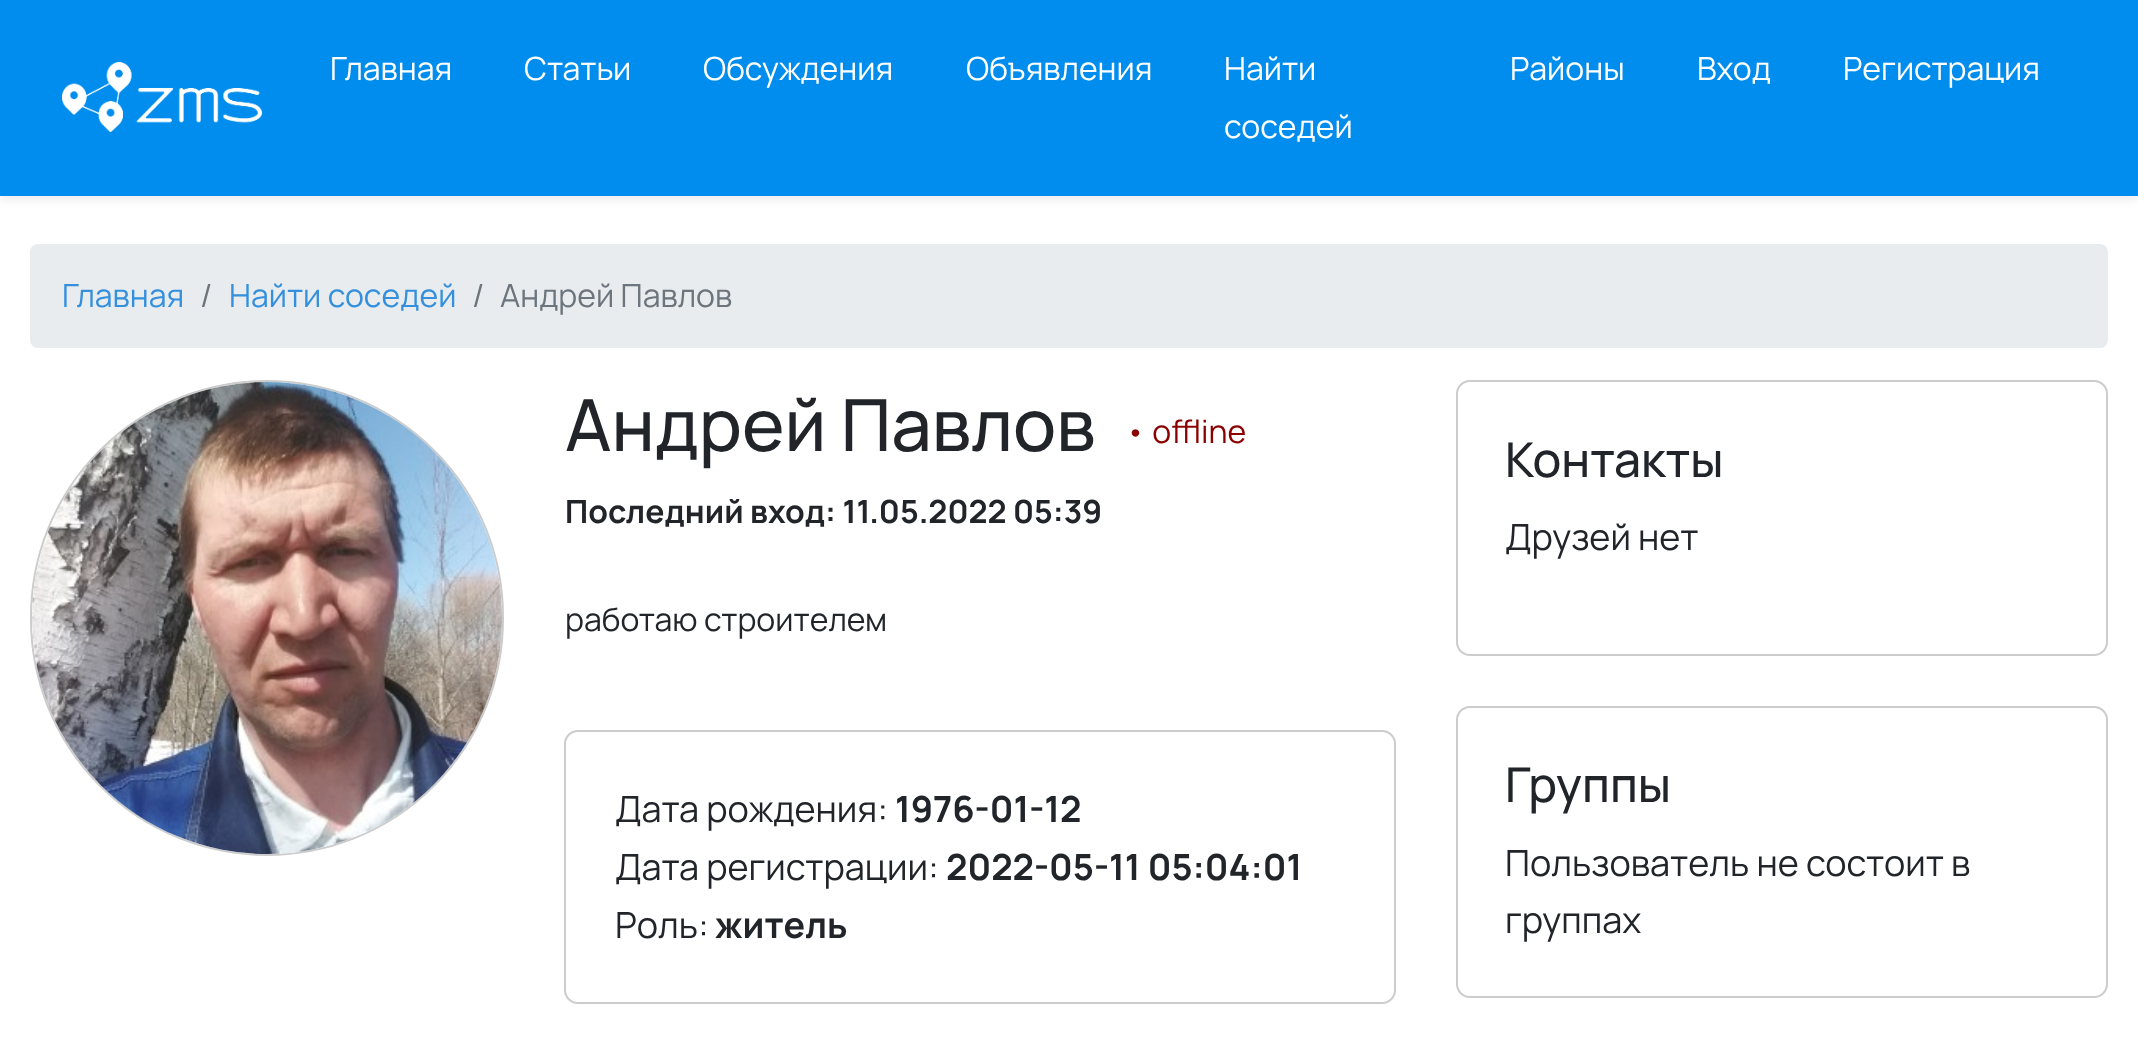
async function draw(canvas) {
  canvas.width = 2138
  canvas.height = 1045
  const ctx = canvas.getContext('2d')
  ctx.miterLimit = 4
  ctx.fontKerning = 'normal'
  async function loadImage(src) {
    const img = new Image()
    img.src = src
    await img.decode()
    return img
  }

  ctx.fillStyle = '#fff'
  ctx.fillRect(0, 0, 2138, 1045)
  ctx.fillStyle = '#00000012'
  ctx.filter = 'blur(4px)'
  ctx.beginPath()
  ctx.rect(0, 4, 2138, 196)
  ctx.fill()
  ctx.filter = 'none'
  ctx.fillStyle = '#008dee'
  ctx.fillRect(0, 0, 2138, 196)
  ctx.drawImage(await loadImage('image0.png'), 62, 62, 200, 70)
  ctx.font = '32px Manrope'
  ctx.fillStyle = '#fff'
  ctx.fillText('Главная', 330, 80)
  ctx.fillText('Статьи', 524, 80)
  ctx.fillText('Обсуждения', 703, 80)
  ctx.fillText('Объявления', 966, 80)
  ctx.fillText('Найти', 1224, 80)
  ctx.fillText('соседей', 1224, 138)
  ctx.fillText('Районы', 1510, 80)
  ctx.fillText('Вход', 1697, 80)
  ctx.fillText('Регистрация', 1843, 80)
  ctx.fillStyle = '#e9ecef'
  ctx.beginPath()
  ctx.roundRect(30, 244, 2078, 104, 8)
  ctx.fill()
  ctx.fillStyle = '#3490dc'
  ctx.fillText('Главная', 62, 307)
  ctx.fillStyle = '#6c757d'
  ctx.fillText('/', 200, 307)
  ctx.fillStyle = '#3490dc'
  ctx.fillText('Найти соседей', 229, 307)
  ctx.fillStyle = '#6c757d'
  ctx.fillText('/', 472, 307)
  ctx.fillText('Андрей Павлов', 500, 307)
  ctx.beginPath()
  ctx.roundRect(31, 381, 472, 474, 236)
  ctx.strokeStyle = '#ccc'
  ctx.lineWidth = 2
  ctx.stroke()
  ctx.drawImage(await loadImage('image1.png'), 32, 382, 470, 472)
  ctx.font = '500 72px Manrope'
  ctx.fillStyle = '#212529'
  ctx.fillText('Андрей Павлов', 565, 451)
  ctx.font = '32px Manrope'
  ctx.fillStyle = '#8b0000'
  ctx.fillText('• offline', 1125, 443)
  ctx.font = 'bold 32px Manrope'
  ctx.fillStyle = '#212529'
  ctx.fillText('Последний вход: 11.05.2022 05:39', 565, 523)
  ctx.font = '32px Manrope'
  ctx.fillText('работаю строителем', 565, 631)
  ctx.beginPath()
  ctx.roundRect(565, 731, 830, 272, 13)
  ctx.stroke()
  ctx.font = '36px Manrope'
  ctx.fillText('Дата рождения:', 615, 822)
  ctx.font = 'bold 36px Manrope'
  ctx.fillText('1976-01-12', 895, 822)
  ctx.font = '36px Manrope'
  ctx.fillText('Дата регистрации:', 615, 880)
  ctx.font = 'bold 36px Manrope'
  ctx.fillText('2022-05-11 05:04:01', 946, 880)
  ctx.font = '36px Manrope'
  ctx.fillText('Роль:', 615, 938)
  ctx.font = 'bold 36px Manrope'
  ctx.fillText('житель', 715, 938)
  ctx.beginPath()
  ctx.roundRect(1457, 381, 650, 274, 13)
  ctx.stroke()
  ctx.font = '500 48px Manrope'
  ctx.fillText('Контакты', 1505, 477)
  ctx.font = '36px Manrope'
  ctx.fillText('Друзей нет', 1505, 550)
  ctx.beginPath()
  ctx.roundRect(1457, 707, 650, 290, 13)
  ctx.stroke()
  ctx.font = '500 48px Manrope'
  ctx.fillText('Группы', 1505, 802)
  ctx.font = '36px Manrope'
  ctx.fillText('Пользователь не состоит в', 1505, 876)
  ctx.fillText('группах', 1505, 933)
}

draw(document.querySelector('canvas'))
